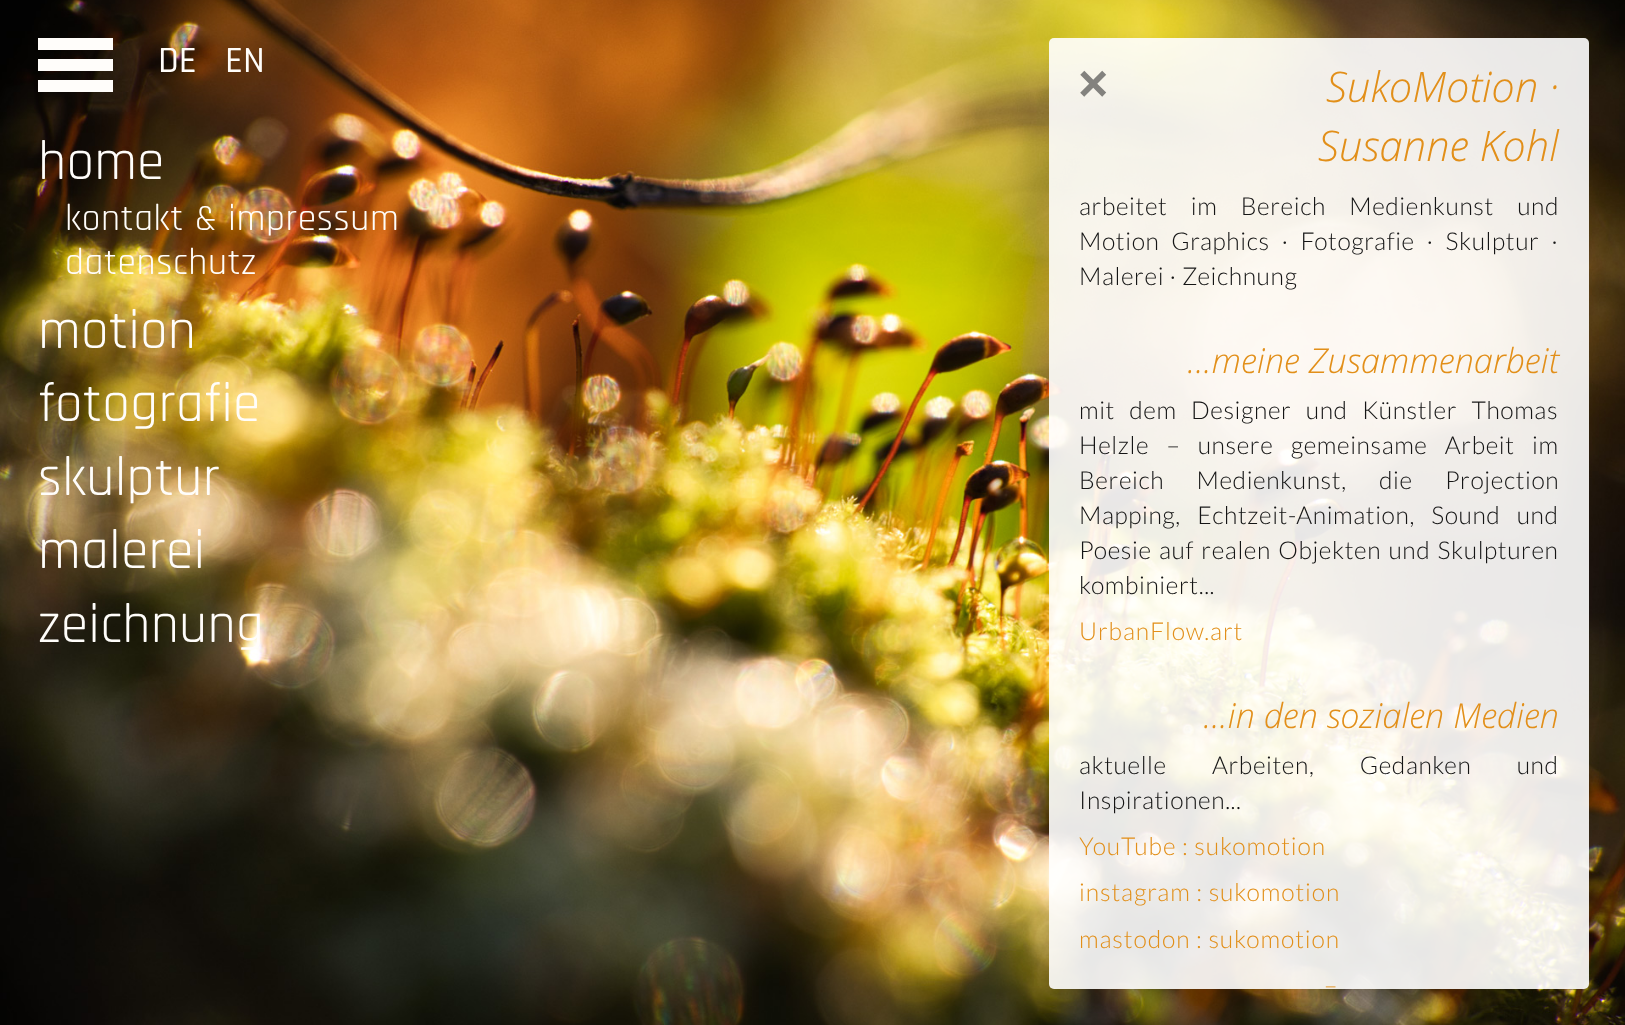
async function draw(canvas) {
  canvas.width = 1625
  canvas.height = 1025
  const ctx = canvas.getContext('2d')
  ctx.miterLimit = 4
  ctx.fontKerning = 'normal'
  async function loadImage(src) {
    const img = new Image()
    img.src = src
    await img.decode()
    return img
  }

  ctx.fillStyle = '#fff'
  ctx.fillRect(0, 0, 1625, 1025)
  ctx.drawImage(await loadImage('image0.png'), 0, 0, 1625, 1025)
  ctx.fillStyle = '#fffdfa'
  ctx.fillRect(38, 38, 75, 12)
  ctx.fillRect(38, 80, 75, 12)
  ctx.fillRect(38, 59, 75, 12)
  ctx.font = '500 37.5px Rajdhani'
  ctx.fillText('DE', 158, 72)
  ctx.fillText('EN', 225, 72)
  ctx.letterSpacing = '0.25px'
  ctx.font = '55.5px Rajdhani'
  ctx.fillText('home', 38, 179)
  ctx.letterSpacing = '0.6px'
  ctx.font = '37.5px Rajdhani'
  ctx.fillText('kontakt & impressum', 65, 230)
  ctx.fillText('datenschutz', 65, 274)
  ctx.letterSpacing = '0.25px'
  ctx.font = '55.5px Rajdhani'
  ctx.fillText('motion', 38, 348)
  ctx.fillText('fotografie', 38, 421)
  ctx.fillText('skulptur', 38, 495)
  ctx.fillText('malerei', 38, 568)
  ctx.fillText('zeichnung', 38, 642)
  ctx.fillStyle = '#ffffffe6'
  ctx.beginPath()
  ctx.roundRect(1049, 38, 540, 951, 5)
  ctx.fill()
  ctx.letterSpacing = '0px'
  ctx.font = 'bold 52px Liberation Sans'
  ctx.fillStyle = '#83827e'
  ctx.fillText('×', 1078, 101)
  ctx.font = 'italic 300 42px Open Sans'
  ctx.fillStyle = '#e28f19'
  ctx.fillText('SukoMotion ·', 1326, 102)
  ctx.fillText('Susanne Kohl', 1318, 161)
  ctx.letterSpacing = '0.6px'
  ctx.wordSpacing = '18px'
  ctx.font = '300 24.6px Lato'
  ctx.fillStyle = '#151515'
  ctx.fillText('arbeitet im Bereich Medienkunst und', 1079, 215)
  ctx.wordSpacing = '6.5px'
  ctx.fillText('Motion Graphics · Fotografie · Skulptur ·', 1079, 250)
  ctx.wordSpacing = '0px'
  ctx.fillText('Malerei · Zeichnung', 1079, 285)
  ctx.letterSpacing = '0px'
  ctx.font = 'italic 300 34.5px Open Sans'
  ctx.fillStyle = '#e28f19'
  ctx.fillText('...meine Zusammenarbeit', 1187, 373)
  ctx.letterSpacing = '0.6px'
  ctx.wordSpacing = '9px'
  ctx.font = '300 24.6px Lato'
  ctx.fillStyle = '#151515'
  ctx.fillText('mit dem Designer und Künstler Thomas', 1079, 419)
  ctx.wordSpacing = '12px'
  ctx.fillText('Helzle – unsere gemeinsame Arbeit im', 1079, 454)
  ctx.wordSpacing = '27px'
  ctx.fillText('Bereich Medienkunst, die Projection', 1079, 489)
  ctx.wordSpacing = '11px'
  ctx.fillText('Mapping, Echtzeit-Animation, Sound und', 1079, 524)
  ctx.wordSpacing = '2px'
  ctx.fillText('Poesie auf realen Objekten und Skulpturen', 1079, 559)
  ctx.wordSpacing = '0px'
  ctx.fillText('kombiniert...', 1079, 594)
  ctx.letterSpacing = '0.9px'
  ctx.fillStyle = '#e28f19'
  ctx.fillText('UrbanFlow.art', 1079, 640)
  ctx.letterSpacing = '0px'
  ctx.font = 'italic 300 34.5px Open Sans'
  ctx.fillText('...in den sozialen Medien', 1203, 728)
  ctx.letterSpacing = '0.6px'
  ctx.wordSpacing = '40px'
  ctx.font = '300 24.6px Lato'
  ctx.fillStyle = '#151515'
  ctx.fillText('aktuelle Arbeiten, Gedanken und', 1079, 774)
  ctx.wordSpacing = '0px'
  ctx.fillText('Inspirationen...', 1079, 809)
  ctx.letterSpacing = '0.9px'
  ctx.fillStyle = '#e28f19'
  ctx.fillText('YouTube : sukomotion', 1079, 855)
  ctx.fillText('instagram : sukomotion', 1079, 901)
  ctx.fillText('mastodon : sukomotion', 1079, 948)
  ctx.fillText('–', 1324, 994)
}

draw(document.querySelector('canvas'))
